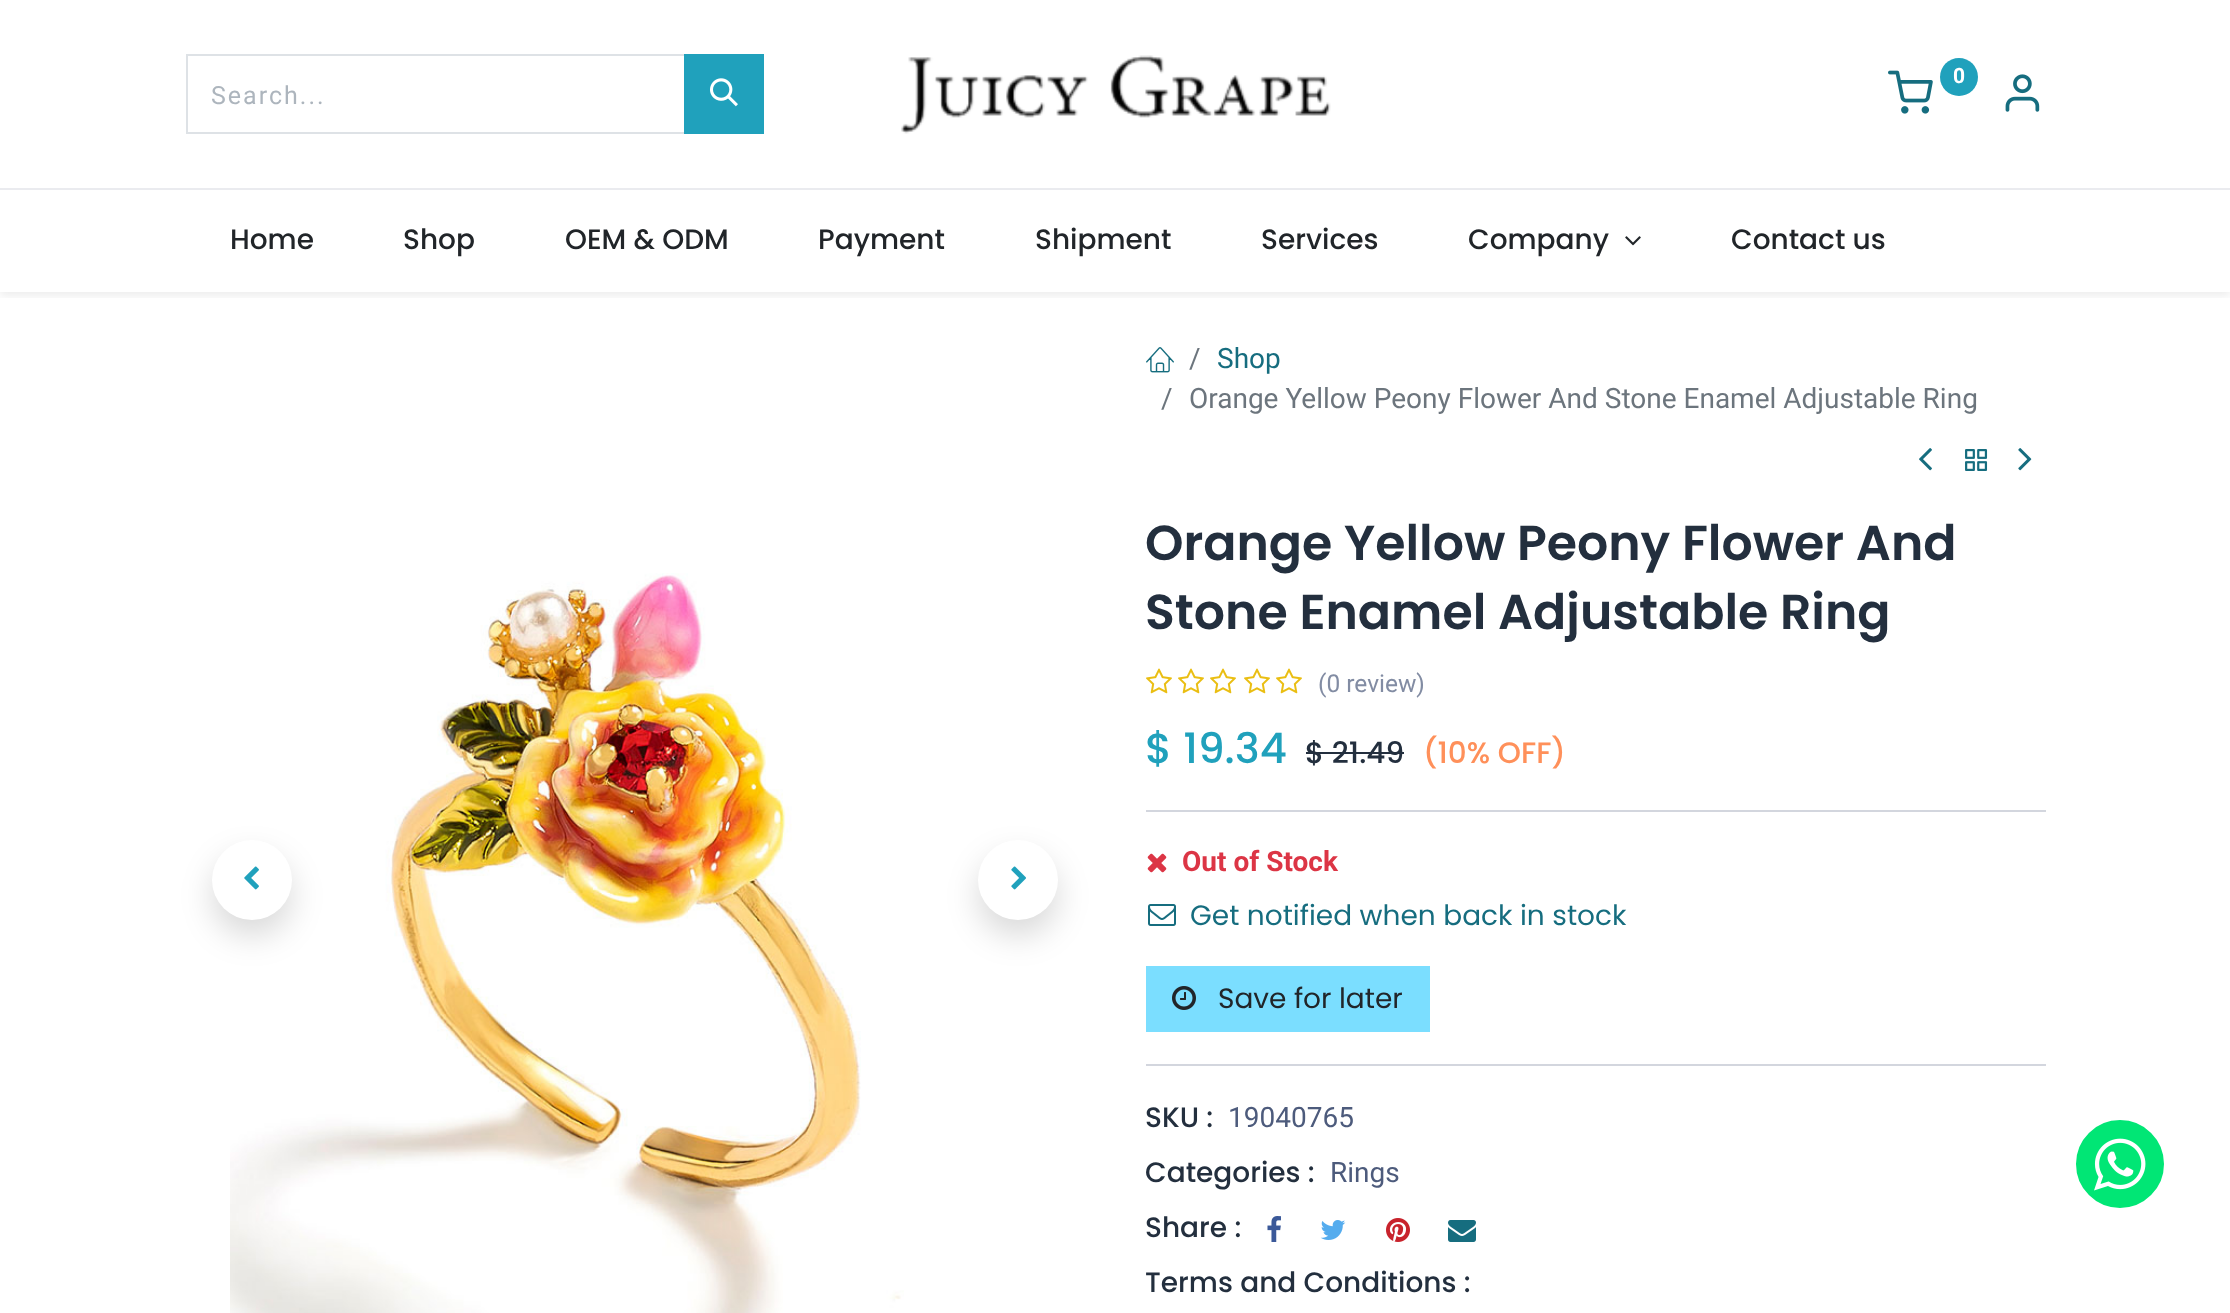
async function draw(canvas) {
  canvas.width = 2230
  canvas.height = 1313
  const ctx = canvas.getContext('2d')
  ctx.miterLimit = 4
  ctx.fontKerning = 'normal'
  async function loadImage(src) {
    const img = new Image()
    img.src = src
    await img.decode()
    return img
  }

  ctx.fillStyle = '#fff'
  ctx.fillRect(0, 0, 2230, 1313)
  ctx.fillStyle = '#eaebef'
  ctx.fillRect(0, 188, 2230, 2)
  ctx.drawImage(await loadImage('image0.png'), 901, 55, 430, 79)
  ctx.drawImage(await loadImage('image1.png'), 1888, 70, 45, 44)
  ctx.fillStyle = '#20a1bc'
  ctx.beginPath()
  ctx.arc(1959, 77, 19, 0, 2 * Math.PI)
  ctx.fill()
  ctx.font = 'bold 21px Roboto'
  ctx.fillStyle = '#fff'
  ctx.fillText('0', 1953, 83)
  ctx.drawImage(await loadImage('image2.png'), 2005, 74, 35, 38)
  ctx.strokeStyle = '#dee2e6'
  ctx.lineWidth = 2
  ctx.strokeRect(187, 55, 498, 78)
  ctx.letterSpacing = '2px'
  ctx.font = '25px Roboto'
  ctx.fillStyle = '#adb5bd'
  ctx.fillText('Search...', 211, 104)
  ctx.fillStyle = '#20a1bc'
  ctx.fillRect(684, 54, 80, 80)
  ctx.drawImage(await loadImage('image3.png'), 710, 78, 28, 29)
  ctx.save()
  ctx.beginPath()
  ctx.rect(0, 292, 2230, 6)
  ctx.clip()
  ctx.fillStyle = '#00000012'
  ctx.filter = 'blur(4px)'
  ctx.beginPath()
  ctx.rect(0, 194, 2230, 102)
  ctx.fill()
  ctx.filter = 'none'
  ctx.restore()
  ctx.letterSpacing = '0px'
  ctx.font = '500 28px Poppins'
  ctx.fillStyle = '#212529'
  ctx.fillText('Home', 230, 249)
  ctx.fillText('Shop', 403, 249)
  ctx.fillText('OEM & ODM', 565, 249)
  ctx.fillText('Payment', 818, 249)
  ctx.fillText('Shipment', 1035, 249)
  ctx.fillText('Services', 1261, 249)
  ctx.fillText('Company', 1468, 249)
  ctx.drawImage(await loadImage('image4.png'), 1625, 236, 16, 10)
  ctx.fillText('Contact us', 1731, 249)
  ctx.drawImage(await loadImage('image5.png'), 230, 573, 674, 740)
  ctx.fillStyle = '#00000026'
  ctx.filter = 'blur(16px)'
  ctx.beginPath()
  ctx.roundRect(212, 856, 80, 80, 40)
  ctx.fill()
  ctx.filter = 'none'
  ctx.fillStyle = '#fff'
  ctx.beginPath()
  ctx.arc(252, 880, 40, 0, 2 * Math.PI)
  ctx.fill()
  ctx.drawImage(await loadImage('image6.png'), 244, 866, 15, 24)
  ctx.fillStyle = '#00000026'
  ctx.filter = 'blur(16px)'
  ctx.beginPath()
  ctx.roundRect(978, 856, 80, 80, 40)
  ctx.fill()
  ctx.filter = 'none'
  ctx.fillStyle = '#fff'
  ctx.beginPath()
  ctx.arc(1018, 880, 40, 0, 2 * Math.PI)
  ctx.fill()
  ctx.drawImage(await loadImage('image7.png'), 1011, 866, 15, 24)
  ctx.drawImage(await loadImage('image8.png'), 1146, 347, 28, 26)
  ctx.font = '28px Roboto'
  ctx.fillStyle = '#6c757d'
  ctx.fillText('/', 1189, 368)
  ctx.fillStyle = '#166d7f'
  ctx.fillText('Shop', 1217, 368)
  ctx.fillStyle = '#6c757d'
  ctx.fillText('/', 1161, 408)
  ctx.fillText('Orange Yellow Peony Flower And Stone Enamel Adjustable Ring', 1189, 408)
  ctx.drawImage(await loadImage('image9.png'), 1919, 448, 13, 23)
  ctx.drawImage(await loadImage('image10.png'), 1965, 449, 23, 22)
  ctx.drawImage(await loadImage('image11.png'), 2018, 448, 14, 23)
  ctx.font = '600 49px Poppins'
  ctx.fillStyle = '#232f3e'
  ctx.fillText('Orange Yellow Peony Flower And', 1145, 560)
  ctx.fillText('Stone Enamel Adjustable Ring', 1145, 629)
  ctx.drawImage(await loadImage('image12.png'), 1146, 668, 26, 26)
  ctx.drawImage(await loadImage('image12.png'), 1178, 668, 26, 26)
  ctx.drawImage(await loadImage('image12.png'), 1210, 668, 26, 26)
  ctx.drawImage(await loadImage('image12.png'), 1244, 668, 26, 26)
  ctx.drawImage(await loadImage('image12.png'), 1276, 668, 26, 26)
  ctx.font = '24.5px Roboto'
  ctx.fillStyle = '#828ca3'
  ctx.fillText('(0 review)', 1318, 692)
  ctx.font = '500 42px Poppins'
  ctx.fillStyle = '#20a1bc'
  ctx.fillText('$ 19.34', 1145, 763)
  ctx.font = '500 29.5px Poppins'
  ctx.fillStyle = '#232f3e'
  ctx.fillText('$ 21.49', 1305, 763)
  ctx.fillRect(1306, 752, 98, 2)
  ctx.fillStyle = '#ff905a'
  ctx.fillText('(10% OFF)', 1423, 763)
  ctx.fillStyle = '#d3d6de'
  ctx.fillRect(1146, 810, 900, 2)
  ctx.drawImage(await loadImage('image13.png'), 1147, 853, 20, 20)
  ctx.font = 'bold 28px Roboto'
  ctx.fillStyle = '#dc3545'
  ctx.fillText('Out of Stock', 1182, 871)
  ctx.drawImage(await loadImage('image14.png'), 1148, 904, 28, 22)
  ctx.font = '28px Poppins'
  ctx.fillStyle = '#166d7f'
  ctx.fillText('Get notified when back in stock', 1190, 925)
  ctx.fillStyle = '#7bdeff'
  ctx.fillRect(1146, 966, 284, 66)
  ctx.drawImage(await loadImage('image15.png'), 1172, 986, 24, 24)
  ctx.fillStyle = '#212529'
  ctx.fillText('Save for later', 1218, 1008)
  ctx.fillStyle = '#d3d6de'
  ctx.fillRect(1146, 1064, 900, 2)
  ctx.font = '500 28px Poppins'
  ctx.fillStyle = '#232f3e'
  ctx.fillText('SKU :', 1145, 1127)
  ctx.font = '28px Roboto'
  ctx.fillStyle = '#4d5b7c'
  ctx.fillText('19040765', 1228, 1127)
  ctx.font = '500 28px Poppins'
  ctx.fillStyle = '#232f3e'
  ctx.fillText('Categories :', 1145, 1182)
  ctx.font = '28px Roboto'
  ctx.fillStyle = '#4d5b7c'
  ctx.fillText('Rings', 1330, 1182)
  ctx.font = '500 28px Poppins'
  ctx.fillStyle = '#232f3e'
  ctx.fillText('Share :', 1145, 1237)
  ctx.drawImage(await loadImage('image16.png'), 1267, 1216, 14, 26)
  ctx.drawImage(await loadImage('image17.png'), 1320, 1220, 26, 20)
  ctx.drawImage(await loadImage('image18.png'), 1386, 1218, 24, 24)
  ctx.drawImage(await loadImage('image19.png'), 1448, 1220, 28, 22)
  ctx.fillText('Terms and Conditions :', 1145, 1292)
  ctx.fillStyle = '#01e675'
  ctx.beginPath()
  ctx.arc(2120, 1164, 47, 0, 2 * Math.PI)
  ctx.fill()
  ctx.strokeStyle = '#fff'
  ctx.lineWidth = 6
  ctx.stroke()
  ctx.drawImage(await loadImage('image20.png'), 2094, 1138, 52, 53)
}

draw(document.querySelector('canvas'))
